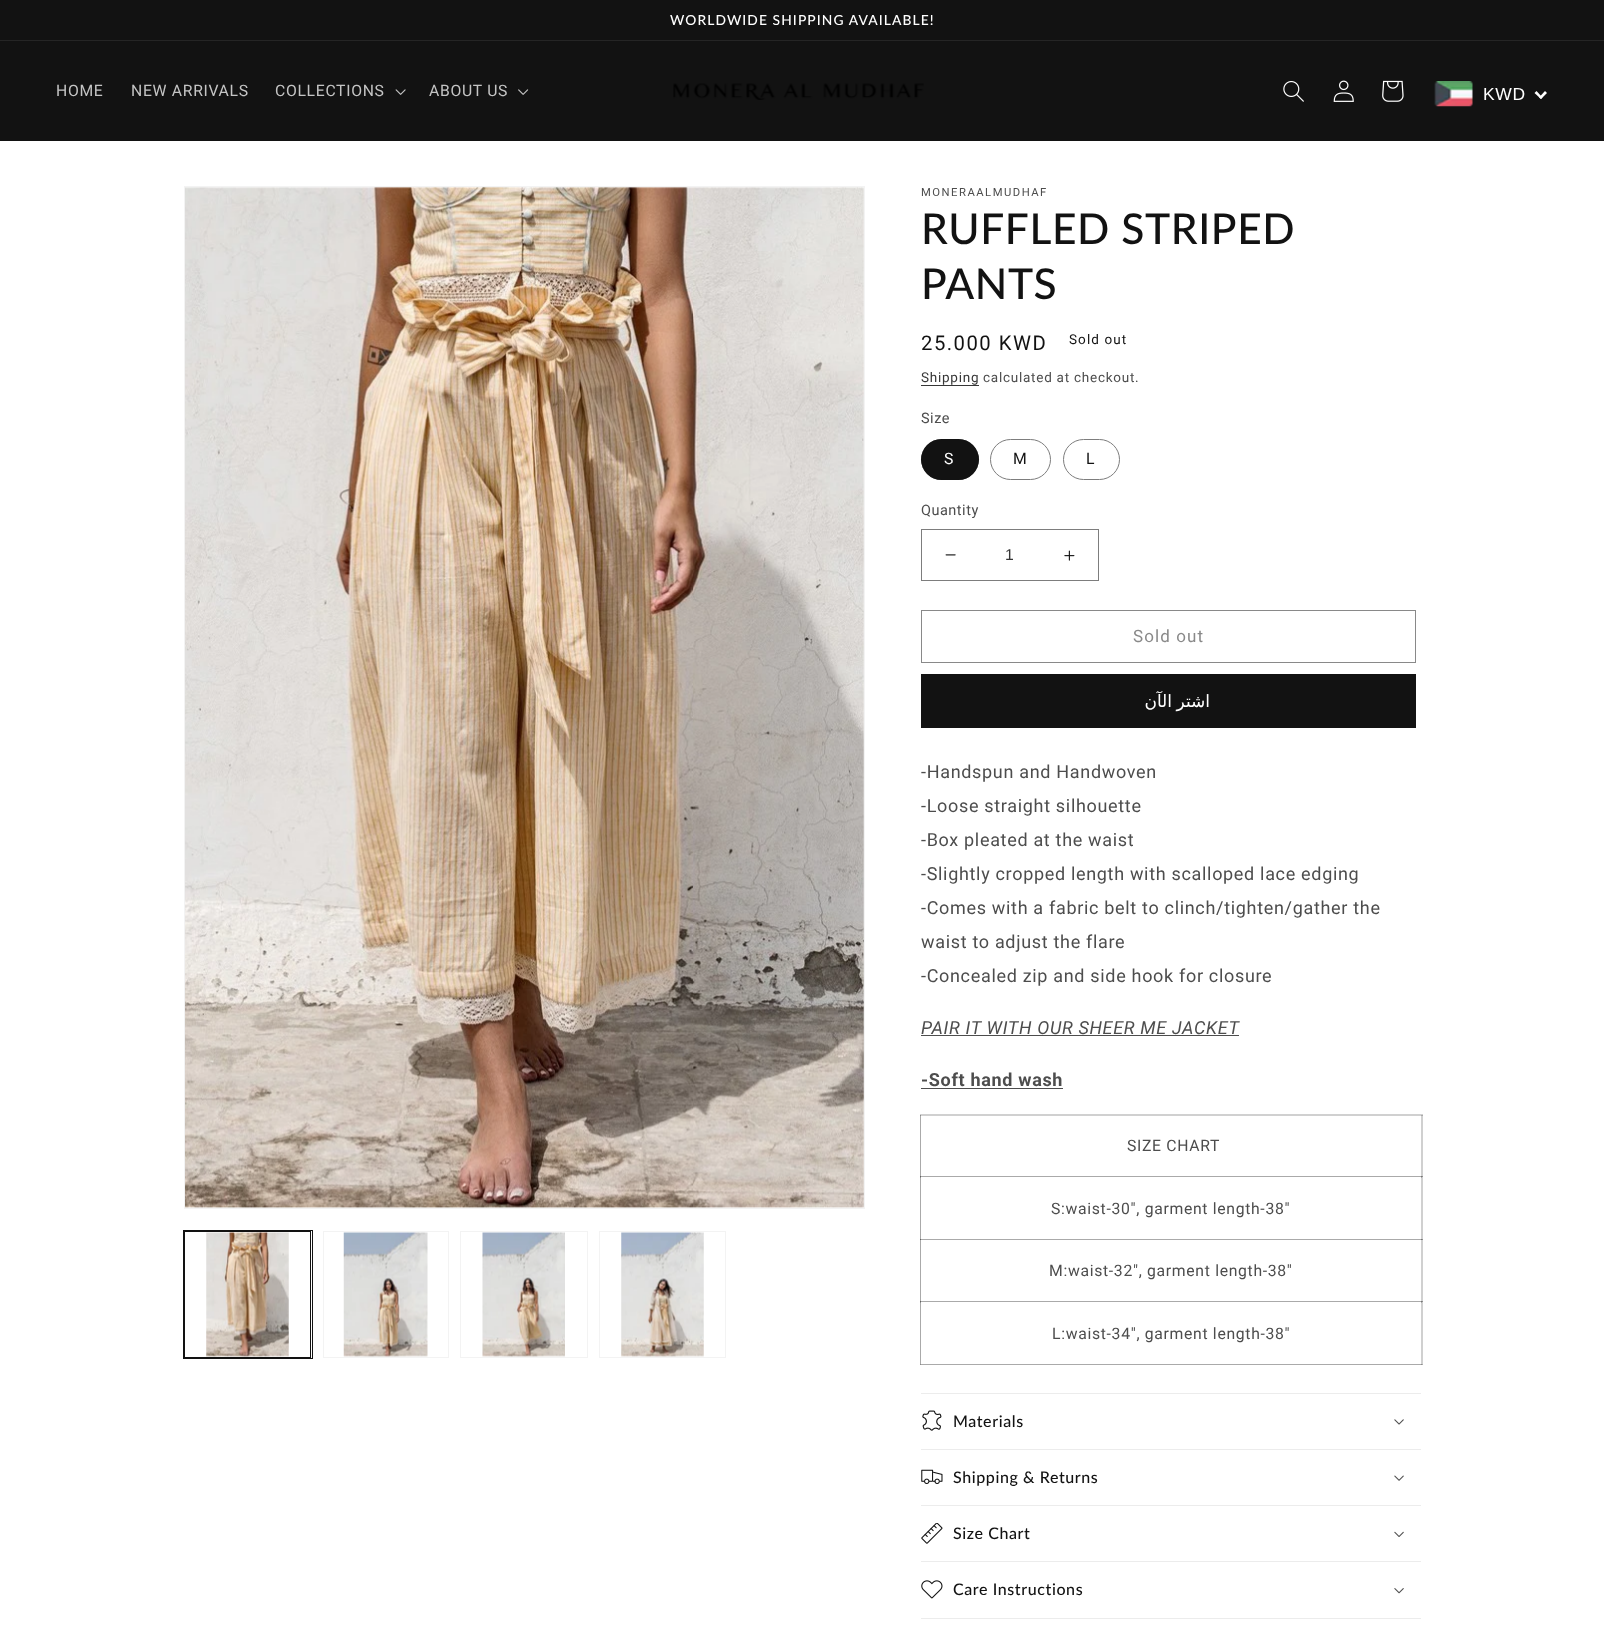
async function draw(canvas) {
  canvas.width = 1604
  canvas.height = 1629
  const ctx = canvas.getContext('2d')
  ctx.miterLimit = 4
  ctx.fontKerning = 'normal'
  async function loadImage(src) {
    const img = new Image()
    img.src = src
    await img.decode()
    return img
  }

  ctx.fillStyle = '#fff'
  ctx.fillRect(0, 0, 1604, 1629)
  ctx.fillStyle = '#121212'
  ctx.fillRect(0, 0, 1604, 40)
  ctx.fillStyle = '#252525'
  ctx.fillRect(0, 40, 1604, 1)
  ctx.letterSpacing = '1.1px'
  ctx.font = '500 13.8px Lato'
  ctx.fillStyle = '#fff'
  ctx.fillText('WORLDWIDE SHIPPING AVAILABLE!', 670, 25)
  ctx.fillStyle = '#121212'
  ctx.fillRect(0, 41, 1604, 100)
  ctx.letterSpacing = '0.68px'
  ctx.font = '15.75px Roboto'
  ctx.fillStyle = '#c4c4c4'
  ctx.fillText('HOME', 56, 96)
  ctx.fillText('NEW ARRIVALS', 131, 96)
  ctx.fillText('COLLECTIONS', 275, 96)
  ctx.drawImage(await loadImage('image0.png'), 395, 89, 11, 6)
  ctx.fillText('ABOUT US', 429, 96)
  ctx.drawImage(await loadImage('image1.png'), 518, 89, 11, 6)
  ctx.drawImage(await loadImage('image2.png'), 673, 83, 251, 17)
  ctx.drawImage(await loadImage('image3.png'), 1283, 81, 21, 21)
  ctx.drawImage(await loadImage('image4.png'), 1333, 80, 21, 22)
  ctx.drawImage(await loadImage('image5.png'), 1382, 80, 22, 22)
  ctx.drawImage(await loadImage('image6.png'), 1434, 81, 39, 26)
  ctx.font = '17.5px Liberation Sans'
  ctx.fillStyle = '#fff'
  ctx.fillText('KWD', 1483, 100)
  ctx.beginPath()
  ctx.moveTo(1545, 91)
  ctx.lineTo(1547, 93)
  ctx.lineTo(1541, 99)
  ctx.lineTo(1539, 97.5)
  ctx.closePath()
  ctx.fill()
  ctx.beginPath()
  ctx.moveTo(1536.5, 91)
  ctx.lineTo(1542.5, 97.5)
  ctx.lineTo(1541, 99)
  ctx.lineTo(1534.5, 93)
  ctx.closePath()
  ctx.fill()
  ctx.strokeStyle = '#f3f3f3'
  ctx.strokeRect(184.5, 186.5, 680, 1022)
  ctx.drawImage(await loadImage('image7.png'), 185, 187, 679, 1021)
  ctx.strokeStyle = '#121212'
  ctx.strokeRect(183.5, 1230.5, 129, 128)
  ctx.strokeRect(184.5, 1231.5, 126, 126)
  ctx.drawImage(await loadImage('image8.png'), 206, 1232, 83, 125)
  ctx.strokeStyle = '#f3f3f3'
  ctx.strokeRect(323.5, 1231.5, 125, 126)
  ctx.drawImage(await loadImage('image9.png'), 343, 1232, 85, 125)
  ctx.strokeRect(460.5, 1231.5, 127, 126)
  ctx.drawImage(await loadImage('image10.png'), 482, 1232, 83, 125)
  ctx.strokeRect(599.5, 1231.5, 126, 126)
  ctx.drawImage(await loadImage('image11.png'), 621, 1232, 83, 125)
  ctx.letterSpacing = '1.5px'
  ctx.font = '11.25px Roboto'
  ctx.fillStyle = '#4d4d4d'
  ctx.fillText('MONERAALMUDHAF', 921, 196)
  ctx.letterSpacing = '0.6px'
  ctx.font = '500 42.5px Lato'
  ctx.fillStyle = '#121212'
  ctx.fillText('RUFFLED STRIPED', 921, 244)
  ctx.fillText('PANTS', 921, 299)
  ctx.letterSpacing = '1.5px'
  ctx.font = '20.25px Roboto'
  ctx.fillText('25.000 KWD', 921, 350)
  ctx.letterSpacing = '1.1px'
  ctx.font = '13.5px Roboto'
  ctx.fillText('Sold out', 1069, 344)
  ctx.letterSpacing = '0.75px'
  ctx.fillStyle = '#363636'
  ctx.fillText('Shipping', 921, 382)
  ctx.fillRect(921, 385, 58, 1)
  ctx.fillStyle = '#4d4d4d'
  ctx.fillText('calculated at checkout.', 983, 382)
  ctx.letterSpacing = '0.5px'
  ctx.font = '14.5px Roboto'
  ctx.fillText('Size', 921, 423)
  ctx.fillStyle = '#121212'
  ctx.beginPath()
  ctx.roundRect(921, 439, 58, 41, 20.5)
  ctx.fill()
  ctx.beginPath()
  ctx.roundRect(921.5, 439.5, 57, 40, 20)
  ctx.strokeStyle = '#1212128c'
  ctx.stroke()
  ctx.letterSpacing = '1.1px'
  ctx.font = '15.75px Roboto'
  ctx.fillStyle = '#fff'
  ctx.fillText('S', 944, 464)
  ctx.beginPath()
  ctx.roundRect(990.5, 439.5, 60, 40, 20)
  ctx.strokeStyle = '#7d7d7d'
  ctx.stroke()
  ctx.fillStyle = '#121212'
  ctx.fillText('M', 1013, 464)
  ctx.beginPath()
  ctx.roundRect(1063.5, 439.5, 56, 40, 20)
  ctx.stroke()
  ctx.fillText('L', 1086, 464)
  ctx.letterSpacing = '0.5px'
  ctx.font = '14.5px Roboto'
  ctx.fillStyle = '#4d4d4d'
  ctx.fillText('Quantity', 921, 515)
  ctx.drawImage(await loadImage('image12.png'), 945, 554, 11, 2)
  ctx.drawImage(await loadImage('image13.png'), 1064, 550, 11, 11)
  ctx.strokeRect(921.5, 529.5, 177, 51)
  ctx.letterSpacing = '0px'
  ctx.font = '15.75px Liberation Sans'
  ctx.fillStyle = '#363636'
  ctx.fillText('1', 1005, 560)
  ctx.strokeStyle = '#898989'
  ctx.strokeRect(921.5, 610.5, 494, 52)
  ctx.letterSpacing = '1.1px'
  ctx.font = '17px Roboto'
  ctx.fillStyle = '#898989'
  ctx.fillText('Sold out', 1133, 642)
  ctx.fillStyle = '#121212'
  ctx.fillRect(921, 674, 495, 54)
  ctx.wordSpacing = '-2px'
  ctx.direction = 'rtl'
  ctx.font = '17px DejaVu Sans'
  ctx.fillStyle = '#fff'
  ctx.fillText('اشتر الآن', 1210, 707)
  ctx.letterSpacing = '0.68px'
  ctx.wordSpacing = '0px'
  ctx.direction = 'ltr'
  ctx.font = '18px Roboto'
  ctx.fillStyle = '#4d4d4d'
  ctx.fillText('-Handspun and Handwoven', 921, 778)
  ctx.fillText('-Loose straight silhouette', 921, 812)
  ctx.fillText('-Box pleated at the waist', 921, 846)
  ctx.fillText('-Slightly cropped length with scalloped lace edging', 921, 880)
  ctx.fillText('-Comes with a fabric belt to clinch/tighten/gather the', 921, 914)
  ctx.fillText('waist to adjust the flare', 921, 948)
  ctx.fillText('-Concealed zip and side hook for closure', 921, 982)
  ctx.font = 'italic 18px Roboto'
  ctx.fillText('PAIR IT WITH OUR SHEER ME JACKET', 921, 1034)
  ctx.fillRect(921, 1035, 318, 1)
  ctx.font = 'bold 18px Roboto'
  ctx.fillText('-Soft hand wash', 921, 1086)
  ctx.fillRect(921, 1088, 142, 1)
  ctx.strokeStyle = '#d0d0d0'
  ctx.strokeRect(920.5, 1114.5, 502, 250)
  ctx.fillStyle = '#12121233'
  ctx.fillRect(920, 1115, 503, 1)
  ctx.fillRect(920, 1176, 503, 1)
  ctx.fillRect(920, 1239, 503, 1)
  ctx.fillRect(920, 1301, 503, 1)
  ctx.fillRect(1421, 1301, 1, 64)
  ctx.fillRect(1421, 1239, 1, 64)
  ctx.fillRect(1421, 1176, 1, 64)
  ctx.fillRect(1421, 1115, 1, 63)
  ctx.fillRect(920, 1364, 503, 1)
  ctx.fillRect(920, 1301, 1, 64)
  ctx.fillRect(920, 1301, 503, 1)
  ctx.fillRect(920, 1239, 1, 64)
  ctx.fillRect(920, 1239, 503, 1)
  ctx.fillRect(920, 1176, 1, 64)
  ctx.fillRect(920, 1176, 503, 1)
  ctx.fillRect(920, 1115, 1, 63)
  ctx.font = '15.75px Roboto'
  ctx.fillStyle = '#4d4d4d'
  ctx.fillText('SIZE CHART', 1127, 1151)
  ctx.fillText('S:waist-30", garment length-38"', 1051, 1214)
  ctx.fillText('M:waist-32", garment length-38"', 1049, 1276)
  ctx.fillText('L:waist-34", garment length-38"', 1052, 1339)
  ctx.fillStyle = '#ececec'
  ctx.fillRect(921, 1393, 500, 1)
  ctx.fillRect(921, 1449, 500, 1)
  ctx.drawImage(await loadImage('image14.png'), 922, 1410, 20, 21)
  ctx.letterSpacing = '0.6px'
  ctx.font = '500 16px Lato'
  ctx.fillStyle = '#121212'
  ctx.fillText('Materials', 953, 1427)
  ctx.drawImage(await loadImage('image15.png'), 1394, 1419, 10, 6)
  ctx.fillStyle = '#ececec'
  ctx.fillRect(921, 1505, 500, 1)
  ctx.drawImage(await loadImage('image16.png'), 921, 1469, 22, 15)
  ctx.fillStyle = '#121212'
  ctx.fillText('Shipping & Returns', 953, 1483)
  ctx.drawImage(await loadImage('image17.png'), 1394, 1475, 10, 6)
  ctx.fillStyle = '#ececec'
  ctx.fillRect(921, 1561, 500, 1)
  ctx.drawImage(await loadImage('image18.png'), 921, 1523, 22, 21)
  ctx.fillStyle = '#121212'
  ctx.fillText('Size Chart', 953, 1539)
  ctx.drawImage(await loadImage('image19.png'), 1394, 1531, 10, 6)
  ctx.fillStyle = '#ececec'
  ctx.fillRect(921, 1618, 500, 1)
  ctx.drawImage(await loadImage('image20.png'), 921, 1580, 22, 19)
  ctx.fillStyle = '#121212'
  ctx.fillText('Care Instructions', 953, 1595)
  ctx.drawImage(await loadImage('image21.png'), 1394, 1588, 10, 6)
}

draw(document.querySelector('canvas'))
